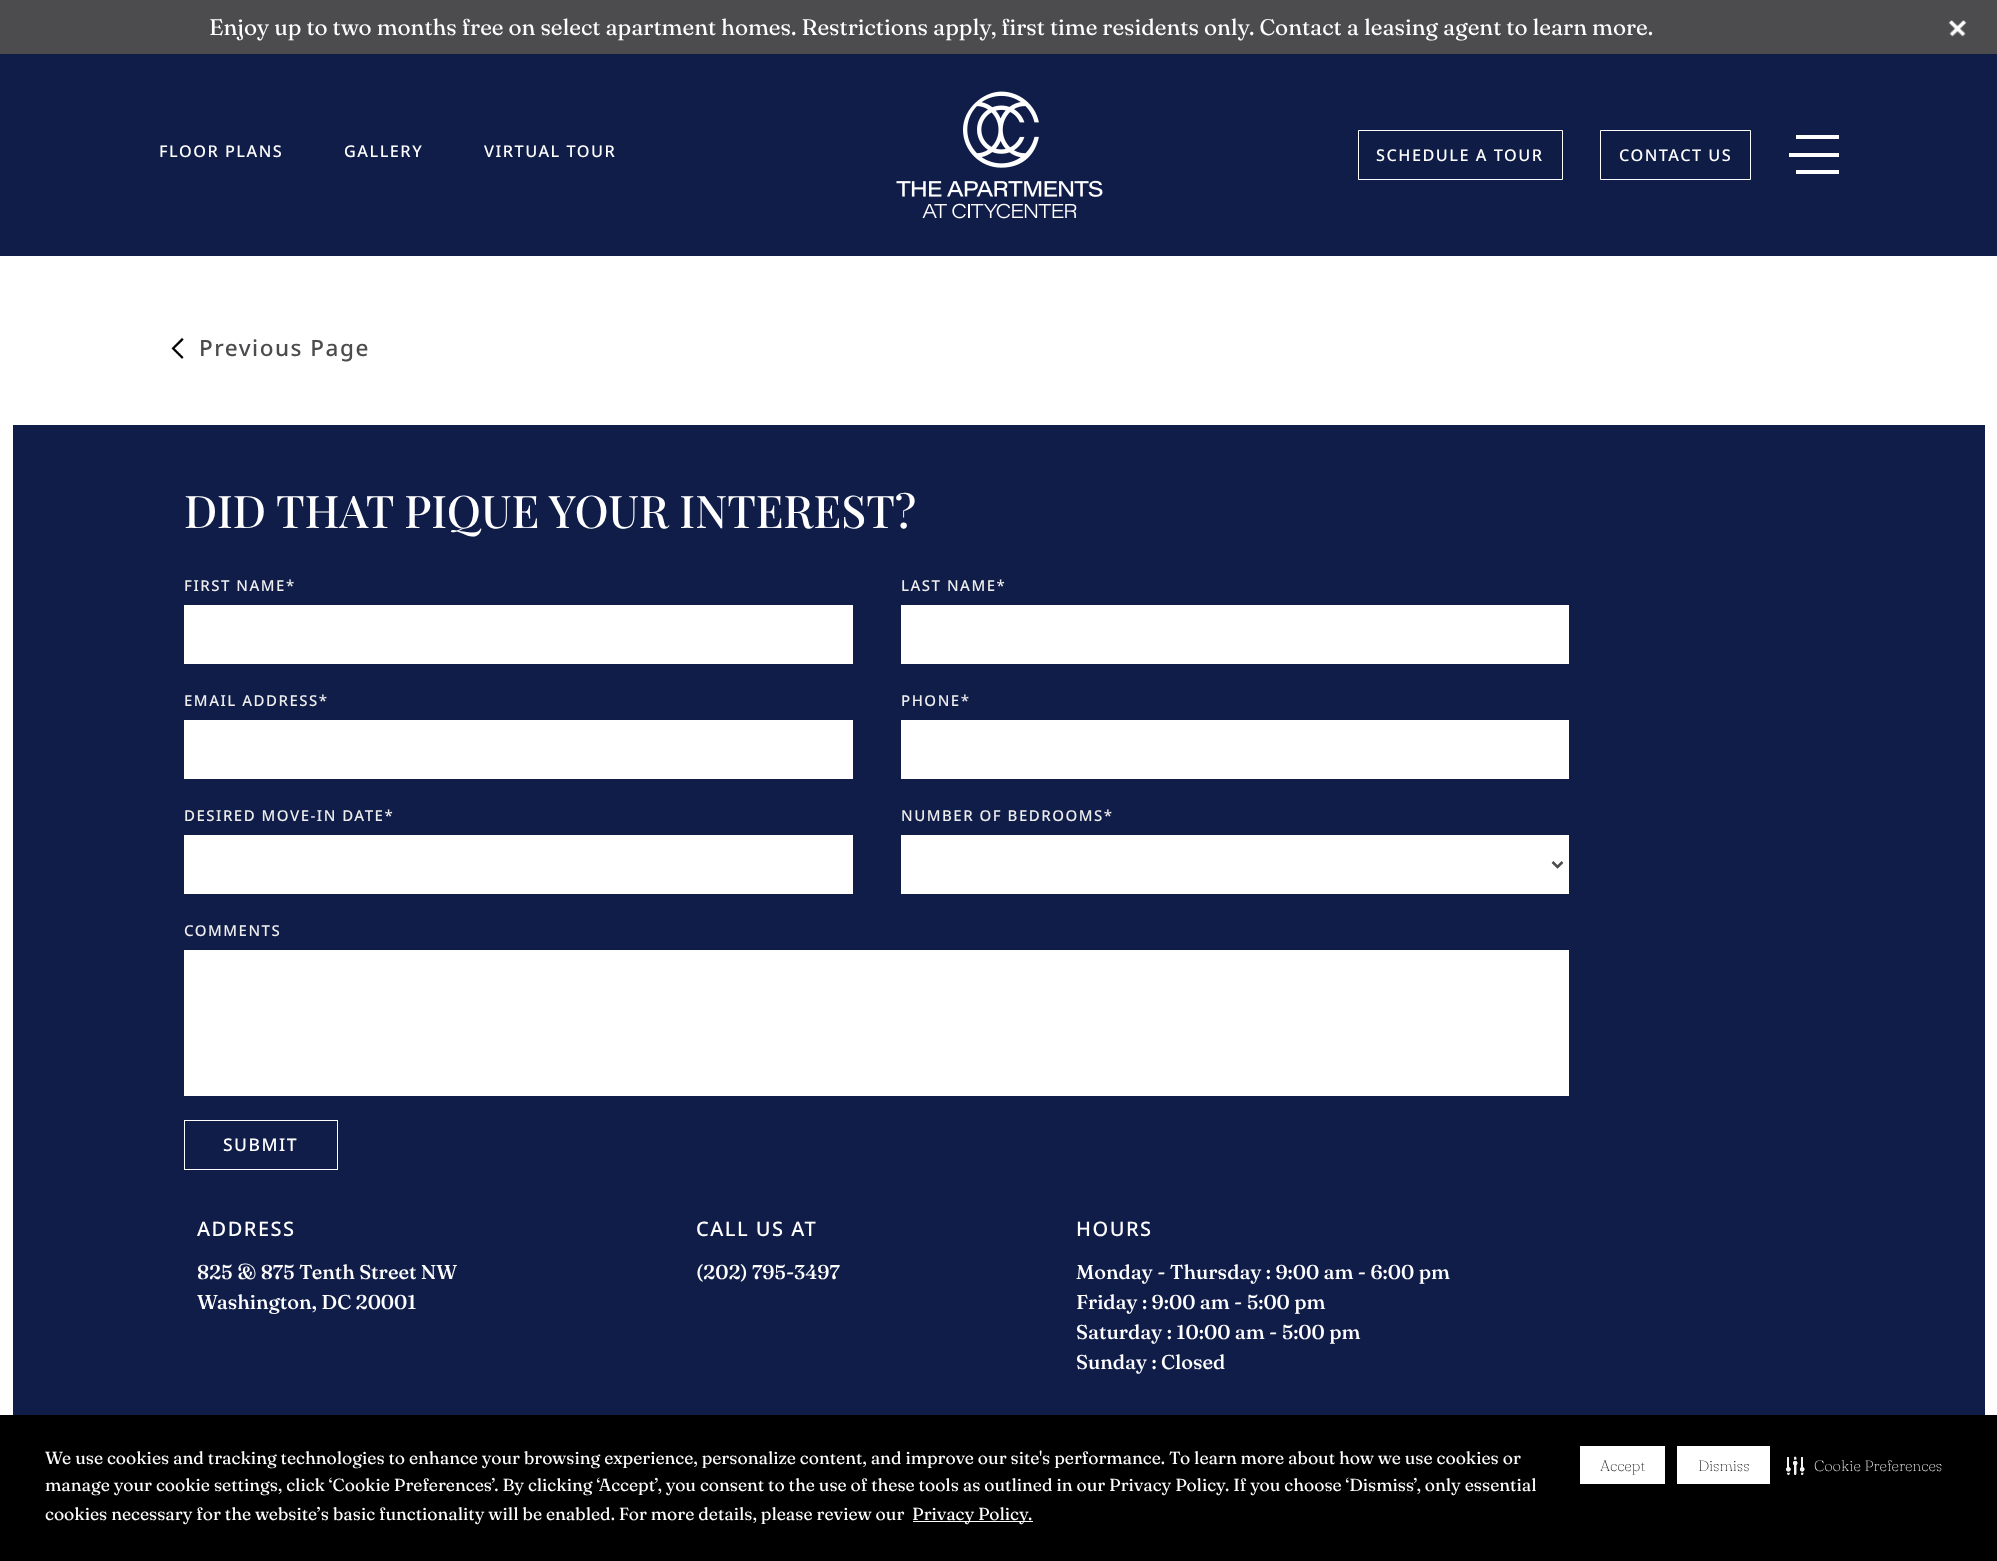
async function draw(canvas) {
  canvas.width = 1997
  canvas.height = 1561
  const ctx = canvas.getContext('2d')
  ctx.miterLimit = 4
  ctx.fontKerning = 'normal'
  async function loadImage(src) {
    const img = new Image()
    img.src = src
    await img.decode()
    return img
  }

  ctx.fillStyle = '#fff'
  ctx.fillRect(0, 0, 1997, 1561)
  ctx.fillStyle = '#4c4c4e'
  ctx.fillRect(0, 0, 1997, 54)
  ctx.font = '22.5px Fraunces'
  ctx.fillStyle = '#fff'
  ctx.fillText('Enjoy up to two months free on select apartment homes. Restrictions apply, first time residents only. Contact a leasing agent to learn more.', 209, 35)
  ctx.drawImage(await loadImage('image0.png'), 1948, 20, 19, 17)
  ctx.fillStyle = '#101d49'
  ctx.fillRect(0, 54, 1997, 202)
  ctx.letterSpacing = '1.5px'
  ctx.font = '500 16.25px Noto Sans'
  ctx.fillStyle = '#fff'
  ctx.fillText('FLOOR PLANS', 159, 157)
  ctx.fillText('GALLERY', 344, 157)
  ctx.fillText('VIRTUAL TOUR', 484, 157)
  ctx.drawImage(await loadImage('image1.png'), 896, 91, 207, 128)
  ctx.fillStyle = '#0f1c45'
  ctx.beginPath()
  ctx.rect(1358.5, 130.5, 204, 49)
  ctx.fill()
  ctx.strokeStyle = '#fff'
  ctx.stroke()
  ctx.fillStyle = '#fff'
  ctx.fillText('SCHEDULE A TOUR', 1376, 161)
  ctx.fillStyle = '#0f1c45'
  ctx.beginPath()
  ctx.rect(1600.5, 130.5, 150, 49)
  ctx.fill()
  ctx.stroke()
  ctx.fillStyle = '#fff'
  ctx.fillText('CONTACT US', 1619, 161)
  ctx.fillRect(1796, 135, 43, 4)
  ctx.fillRect(1789, 153, 50, 4)
  ctx.fillRect(1796, 170, 43, 4)
  ctx.drawImage(await loadImage('image2.png'), 171, 337, 13, 22)
  ctx.font = '500 22.5px Noto Sans'
  ctx.fillStyle = '#4c4c4e'
  ctx.fillText('Previous Page', 199, 356)
  ctx.fillStyle = '#101d49'
  ctx.fillRect(13, 425, 1972, 990)
  ctx.letterSpacing = '0px'
  ctx.font = '500 45px Playfair Display'
  ctx.fillStyle = '#fff'
  ctx.fillText('DID THAT PIQUE YOUR INTEREST?', 184, 528)
  ctx.letterSpacing = '1.5px'
  ctx.font = '500 15px Noto Sans'
  ctx.fillStyle = '#eee'
  ctx.fillText('FIRST NAME*', 184, 591)
  ctx.fillStyle = '#fff'
  ctx.fillRect(184, 605, 669, 59)
  ctx.fillStyle = '#eee'
  ctx.fillText('LAST NAME*', 901, 591)
  ctx.fillStyle = '#fff'
  ctx.fillRect(901, 605, 668, 59)
  ctx.fillStyle = '#eee'
  ctx.fillText('EMAIL ADDRESS*', 184, 706)
  ctx.fillStyle = '#fff'
  ctx.fillRect(184, 720, 669, 59)
  ctx.fillStyle = '#eee'
  ctx.fillText('PHONE*', 901, 706)
  ctx.fillStyle = '#fff'
  ctx.fillRect(901, 720, 668, 59)
  ctx.fillStyle = '#eee'
  ctx.fillText('DESIRED MOVE-IN DATE*', 184, 821)
  ctx.fillStyle = '#fff'
  ctx.fillRect(184, 835, 669, 59)
  ctx.fillStyle = '#eee'
  ctx.fillText('NUMBER OF BEDROOMS*', 901, 821)
  ctx.fillStyle = '#fff'
  ctx.fillRect(901, 835, 668, 59)
  ctx.beginPath()
  ctx.moveTo(1552.5, 862)
  ctx.lineTo(1557.5, 867)
  ctx.lineTo(1562.5, 862)
  ctx.strokeStyle = '#4c4c4e'
  ctx.lineWidth = 2.5
  ctx.stroke()
  ctx.fillStyle = '#eee'
  ctx.fillText('COMMENTS', 184, 936)
  ctx.fillStyle = '#fff'
  ctx.fillRect(184, 950, 1385, 146)
  ctx.strokeStyle = '#fff'
  ctx.lineWidth = 1
  ctx.strokeRect(184.5, 1120.5, 153, 49)
  ctx.font = '500 17.5px Noto Sans'
  ctx.fillText('SUBMIT', 223, 1151)
  ctx.font = '500 20px Noto Sans'
  ctx.fillText('ADDRESS', 197, 1236)
  ctx.letterSpacing = '0px'
  ctx.font = '500 20px Fraunces'
  ctx.fillText('825 & 875 Tenth Street NW', 197, 1279)
  ctx.fillText('Washington, DC 20001', 197, 1309)
  ctx.letterSpacing = '1.5px'
  ctx.font = '500 20px Noto Sans'
  ctx.fillText('CALL US AT', 696, 1236)
  ctx.letterSpacing = '0px'
  ctx.font = '500 20px Fraunces'
  ctx.fillText('(202) 795-3497', 696, 1279)
  ctx.letterSpacing = '1.5px'
  ctx.font = '500 20px Noto Sans'
  ctx.fillText('HOURS', 1076, 1236)
  ctx.letterSpacing = '0px'
  ctx.font = '500 20px Fraunces'
  ctx.fillText('Monday - Thursday : 9:00 am - 6:00 pm', 1076, 1279)
  ctx.fillText('Friday : 9:00 am - 5:00 pm', 1076, 1309)
  ctx.fillText('Saturday : 10:00 am - 5:00 pm', 1076, 1339)
  ctx.fillText('Sunday : Closed', 1076, 1369)
  ctx.fillStyle = '#000'
  ctx.fillRect(0, 1415, 1997, 146)
  ctx.font = '17.5px "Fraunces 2"'
  ctx.fillStyle = '#fff'
  ctx.fillText('We use cookies and tracking technologies to enhance your browsing experience, personalize content, and improve our site\'s performance. To learn more about how we use cookies or', 45, 1464)
  ctx.fillText('manage your cookie settings, click ‘Cookie Preferences’. By clicking ‘Accept’, you consent to the use of these tools as outlined in our Privacy Policy. If you choose ‘Dismiss’, only essential', 45, 1491)
  ctx.fillText('cookies necessary for the website’s basic functionality will be enabled. For more details, please review our', 45, 1520)
  ctx.fillRect(913, 1521, 120, 1)
  ctx.fillText('Privacy Policy.', 912, 1520)
  ctx.fillRect(1580, 1446, 85, 38)
  ctx.font = '100 15px Fraunces'
  ctx.fillStyle = '#000'
  ctx.fillText('Accept', 1600, 1471)
  ctx.fillStyle = '#fff'
  ctx.fillRect(1677, 1446, 93, 38)
  ctx.fillStyle = '#000'
  ctx.fillText('Dismiss', 1698, 1471)
  ctx.drawImage(await loadImage('image3.png'), 1786, 1456, 19, 19)
  ctx.fillStyle = '#fff'
  ctx.fillText('Cookie Preferences', 1814, 1471)
}

draw(document.querySelector('canvas'))
